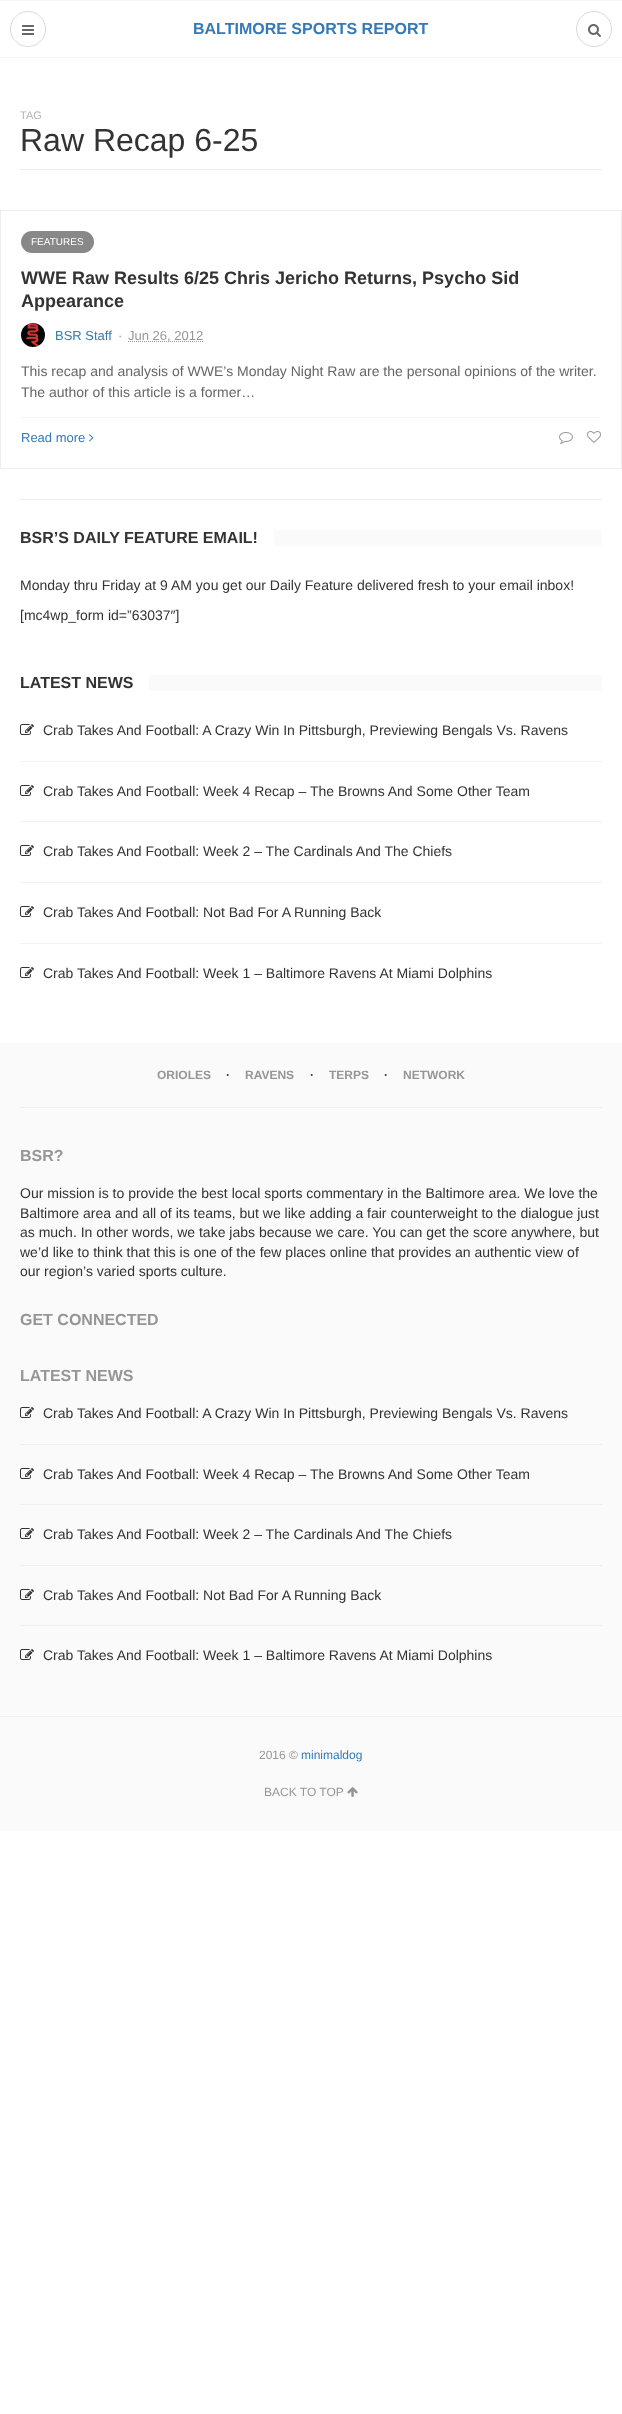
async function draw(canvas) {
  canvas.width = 622
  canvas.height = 2414
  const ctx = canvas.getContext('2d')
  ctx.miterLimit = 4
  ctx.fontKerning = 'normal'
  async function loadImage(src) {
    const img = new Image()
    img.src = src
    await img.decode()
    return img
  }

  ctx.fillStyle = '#fff'
  ctx.fillRect(0, 0, 622, 2414)
  ctx.fillStyle = '#f5f5f5'
  ctx.fillRect(0, 0, 622, 1)
  ctx.fillRect(0, 57, 622, 1)
  ctx.beginPath()
  ctx.arc(28, 29, 17.5, 0, 2 * Math.PI)
  ctx.strokeStyle = '#d9d9d9'
  ctx.stroke()
  ctx.drawImage(await loadImage('image0.png'), 22, 25, 12, 10)
  ctx.font = 'bold 16px Liberation Sans'
  ctx.fillStyle = '#337ab7'
  ctx.fillText('BALTIMORE SPORTS REPORT', 193, 34)
  ctx.beginPath()
  ctx.arc(594, 29, 17.5, 0, 2 * Math.PI)
  ctx.stroke()
  ctx.drawImage(await loadImage('image1.png'), 588, 24, 13, 13)
  ctx.fillStyle = '#eee'
  ctx.fillRect(20, 169, 582, 1)
  ctx.font = '11px Liberation Sans'
  ctx.fillStyle = '#b3b3b3'
  ctx.fillText('TAG', 20, 119)
  ctx.font = '32px Liberation Sans'
  ctx.fillStyle = '#333'
  ctx.fillText('Raw Recap 6-25', 20, 151)
  ctx.strokeStyle = '#eee'
  ctx.strokeRect(0.5, 210.5, 621, 258)
  ctx.fillStyle = '#888'
  ctx.beginPath()
  ctx.roundRect(21, 231, 73, 22, 11)
  ctx.fill()
  ctx.font = '10px Liberation Sans'
  ctx.fillStyle = '#fff'
  ctx.fillText('FEATURES', 31, 245)
  ctx.font = 'bold 18px Liberation Sans'
  ctx.fillStyle = '#333'
  ctx.fillText('WWE Raw Results 6/25 Chris Jericho Returns, Psycho Sid', 21, 284)
  ctx.fillText('Appearance', 21, 307)
  ctx.drawImage(await loadImage('image2.png'), 21, 323, 24, 24)
  ctx.font = '13px Liberation Sans'
  ctx.fillStyle = '#337ab7'
  ctx.fillText('BSR Staff', 55, 340)
  ctx.fillStyle = '#969696'
  ctx.fillText('·', 118, 340)
  ctx.beginPath()
  ctx.moveTo(128, 341.5)
  ctx.lineTo(203.5, 341.5)
  ctx.strokeStyle = '#999'
  ctx.setLineDash([1, 1])
  ctx.stroke()
  ctx.fillText('Jun 26, 2012', 128, 340)
  ctx.font = '14px Liberation Sans'
  ctx.fillStyle = '#666'
  ctx.fillText('This recap and analysis of WWE’s Monday Night Raw are the personal opinions of the writer.', 21, 376)
  ctx.fillText('The author of this article is a former…', 21, 397)
  ctx.fillStyle = '#f5f5f5'
  ctx.fillRect(21, 417, 580, 1)
  ctx.font = '13px Liberation Sans'
  ctx.fillStyle = '#337ab7'
  ctx.fillText('Read more', 21, 442)
  ctx.drawImage(await loadImage('image3.png'), 89, 434, 5, 8)
  ctx.drawImage(await loadImage('image4.png'), 559, 432, 14, 12)
  ctx.drawImage(await loadImage('image5.png'), 587, 431, 14, 12)
  ctx.fillStyle = '#eee'
  ctx.fillRect(20, 499, 582, 1)
  ctx.fillStyle = '#fafafa'
  ctx.fillRect(274, 530, 328, 16)
  ctx.font = 'bold 16px Liberation Sans'
  ctx.fillStyle = '#333'
  ctx.fillText('BSR’S DAILY FEATURE EMAIL!', 20, 543)
  ctx.font = '14px Liberation Sans'
  ctx.fillText('Monday thru Friday at 9 AM you get our Daily Feature delivered fresh to your email inbox!', 20, 590)
  ctx.fillText('[mc4wp_form id=”63037″]', 20, 620)
  ctx.fillStyle = '#fafafa'
  ctx.fillRect(149, 675, 453, 16)
  ctx.font = 'bold 16px Liberation Sans'
  ctx.fillStyle = '#333'
  ctx.fillText('LATEST NEWS', 20, 688)
  ctx.drawImage(await loadImage('image6.png'), 20, 724, 14, 11)
  ctx.font = '14px Liberation Sans'
  ctx.fillText('Crab Takes And Football: A Crazy Win In Pittsburgh, Previewing Bengals Vs. Ravens', 43, 735)
  ctx.fillStyle = '#f2f2f2'
  ctx.fillRect(20, 761, 582, 1)
  ctx.drawImage(await loadImage('image6.png'), 20, 785, 14, 11)
  ctx.fillStyle = '#333'
  ctx.fillText('Crab Takes And Football: Week 4 Recap – The Browns And Some Other Team', 43, 796)
  ctx.fillStyle = '#f2f2f2'
  ctx.fillRect(20, 821, 582, 1)
  ctx.drawImage(await loadImage('image6.png'), 20, 845, 14, 11)
  ctx.fillStyle = '#333'
  ctx.fillText('Crab Takes And Football: Week 2 – The Cardinals And The Chiefs', 43, 856)
  ctx.fillStyle = '#f2f2f2'
  ctx.fillRect(20, 882, 582, 1)
  ctx.drawImage(await loadImage('image6.png'), 20, 906, 14, 11)
  ctx.fillStyle = '#333'
  ctx.fillText('Crab Takes And Football: Not Bad For A Running Back', 43, 917)
  ctx.fillStyle = '#f2f2f2'
  ctx.fillRect(20, 943, 582, 1)
  ctx.drawImage(await loadImage('image6.png'), 20, 967, 14, 11)
  ctx.fillStyle = '#333'
  ctx.fillText('Crab Takes And Football: Week 1 – Baltimore Ravens At Miami Dolphins', 43, 978)
  ctx.fillStyle = '#fafafa'
  ctx.fillRect(0, 1043, 622, 788)
  ctx.fillStyle = '#eee'
  ctx.fillRect(20, 1107, 582, 1)
  ctx.font = 'bold 12px Liberation Sans'
  ctx.fillStyle = '#969696'
  ctx.fillText('ORIOLES', 157, 1079)
  ctx.fillStyle = '#333'
  ctx.fillText('·', 226, 1079)
  ctx.fillStyle = '#969696'
  ctx.fillText('RAVENS', 245, 1079)
  ctx.fillStyle = '#333'
  ctx.fillText('·', 310, 1079)
  ctx.fillStyle = '#969696'
  ctx.fillText('TERPS', 329, 1079)
  ctx.fillStyle = '#333'
  ctx.fillText('·', 384, 1079)
  ctx.fillStyle = '#969696'
  ctx.fillText('NETWORK', 403, 1079)
  ctx.font = 'bold 16px Liberation Sans'
  ctx.fillText('BSR?', 20, 1161)
  ctx.font = '14px Liberation Sans'
  ctx.fillStyle = '#333'
  ctx.fillText('Our mission is to provide the best local sports commentary in the Baltimore area. We love the', 20, 1198)
  ctx.fillText('Baltimore area and all of its teams, but we like adding a fair counterweight to the dialogue just', 20, 1218)
  ctx.fillText('as much. In other words, we take jabs because we care. You can get the score anywhere, but', 20, 1237)
  ctx.fillText('we’d like to think that this is one of the few places online that provides an authentic view of', 20, 1257)
  ctx.fillText('our region’s varied sports culture.', 20, 1276)
  ctx.font = 'bold 16px Liberation Sans'
  ctx.fillStyle = '#969696'
  ctx.fillText('GET CONNECTED', 20, 1325)
  ctx.fillText('LATEST NEWS', 20, 1381)
  ctx.drawImage(await loadImage('image7.png'), 20, 1407, 14, 11)
  ctx.font = '14px Liberation Sans'
  ctx.fillStyle = '#333'
  ctx.fillText('Crab Takes And Football: A Crazy Win In Pittsburgh, Previewing Bengals Vs. Ravens', 43, 1418)
  ctx.fillStyle = '#eee'
  ctx.fillRect(20, 1444, 582, 1)
  ctx.drawImage(await loadImage('image7.png'), 20, 1468, 14, 11)
  ctx.fillStyle = '#333'
  ctx.fillText('Crab Takes And Football: Week 4 Recap – The Browns And Some Other Team', 43, 1479)
  ctx.fillStyle = '#eee'
  ctx.fillRect(20, 1504, 582, 1)
  ctx.drawImage(await loadImage('image7.png'), 20, 1528, 14, 11)
  ctx.fillStyle = '#333'
  ctx.fillText('Crab Takes And Football: Week 2 – The Cardinals And The Chiefs', 43, 1539)
  ctx.fillStyle = '#eee'
  ctx.fillRect(20, 1565, 582, 1)
  ctx.drawImage(await loadImage('image7.png'), 20, 1589, 14, 11)
  ctx.fillStyle = '#333'
  ctx.fillText('Crab Takes And Football: Not Bad For A Running Back', 43, 1600)
  ctx.fillStyle = '#eee'
  ctx.fillRect(20, 1625, 582, 1)
  ctx.drawImage(await loadImage('image7.png'), 20, 1649, 14, 11)
  ctx.fillStyle = '#333'
  ctx.fillText('Crab Takes And Football: Week 1 – Baltimore Ravens At Miami Dolphins', 43, 1660)
  ctx.fillStyle = '#eee'
  ctx.fillRect(0, 1716, 622, 1)
  ctx.font = '12px Liberation Sans'
  ctx.fillStyle = '#969696'
  ctx.fillText('2016 ©', 259, 1759)
  ctx.fillStyle = '#337ab7'
  ctx.fillText('minimaldog', 301, 1759)
  ctx.fillStyle = '#969696'
  ctx.fillText('BACK TO TOP', 264, 1796)
  ctx.drawImage(await loadImage('image8.png'), 347, 1787, 11, 10)
}

draw(document.querySelector('canvas'))
